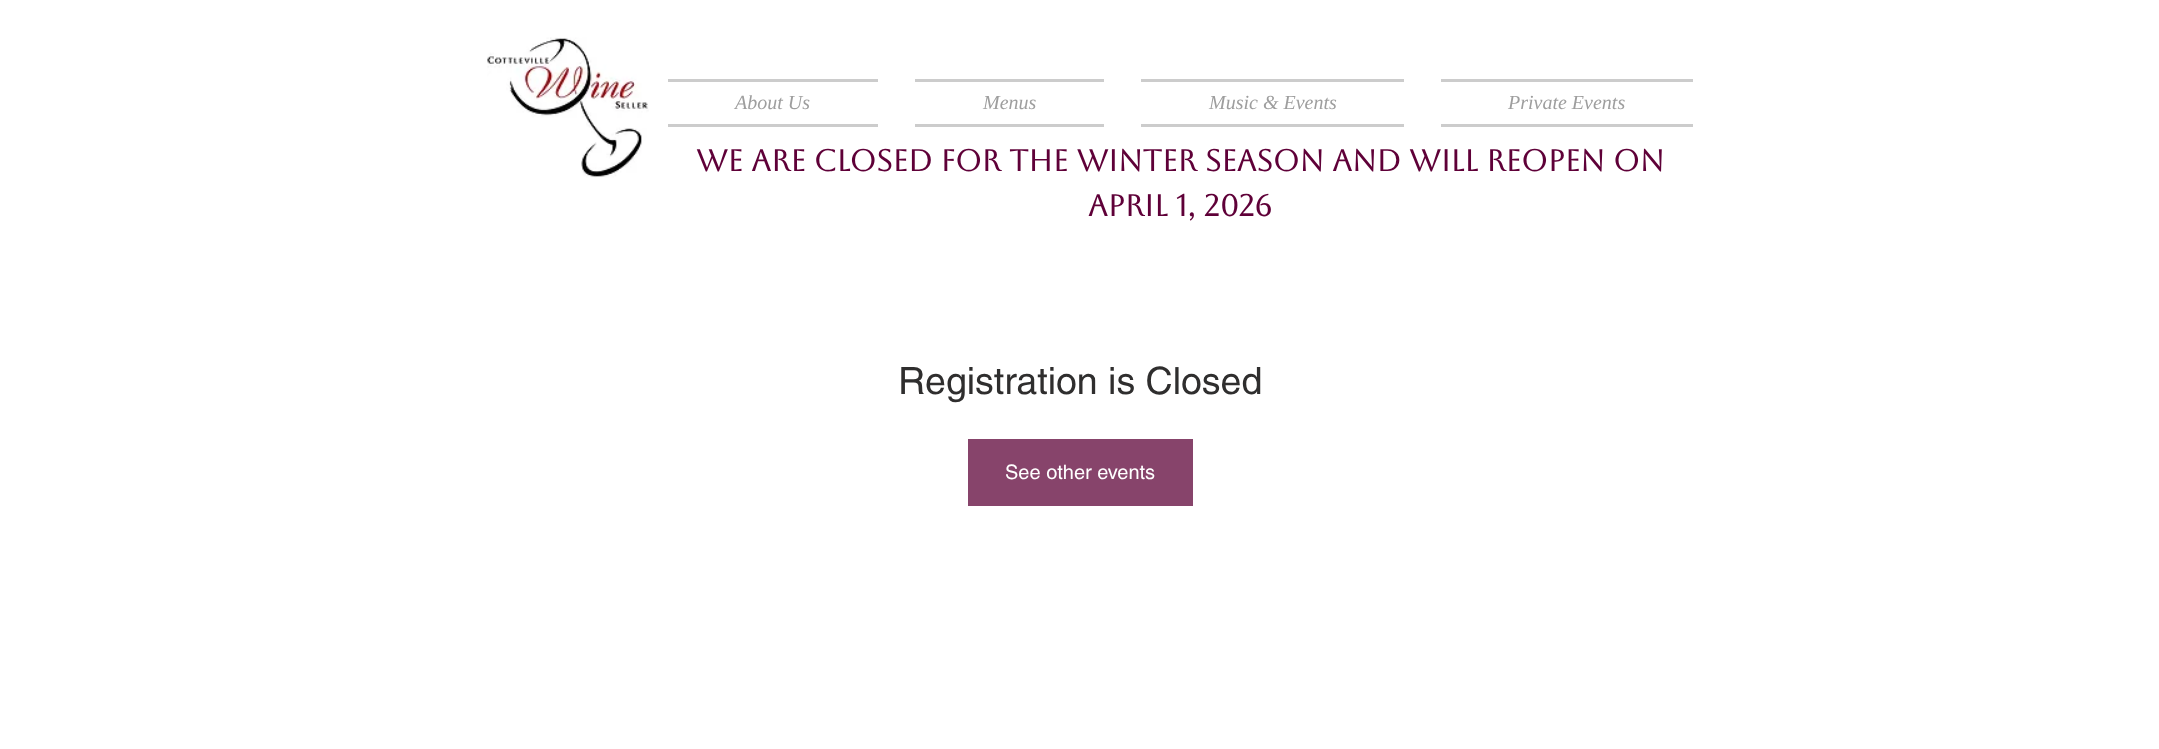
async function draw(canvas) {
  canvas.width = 2159
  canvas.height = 749
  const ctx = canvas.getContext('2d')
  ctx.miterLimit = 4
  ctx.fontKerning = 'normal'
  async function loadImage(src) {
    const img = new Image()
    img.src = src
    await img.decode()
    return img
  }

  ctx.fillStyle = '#fff'
  ctx.fillRect(0, 0, 2159, 749)
  ctx.drawImage(await loadImage('image0.png'), 487, 37, 162, 141)
  ctx.fillStyle = '#ccc'
  ctx.fillRect(668, 79, 210, 3)
  ctx.fillRect(668, 124, 210, 3)
  ctx.font = 'italic 20px Liberation Serif'
  ctx.fillStyle = '#9e9e9e'
  ctx.fillText('About Us', 735, 109)
  ctx.fillStyle = '#ccc'
  ctx.fillRect(915, 79, 189, 3)
  ctx.fillRect(915, 124, 189, 3)
  ctx.fillStyle = '#9e9e9e'
  ctx.fillText('Menus', 983, 109)
  ctx.fillStyle = '#ccc'
  ctx.fillRect(1141, 79, 263, 3)
  ctx.fillRect(1141, 124, 263, 3)
  ctx.fillStyle = '#9e9e9e'
  ctx.fillText('Music & Events', 1209, 109)
  ctx.fillStyle = '#ccc'
  ctx.fillRect(1441, 79, 252, 3)
  ctx.fillRect(1441, 124, 252, 3)
  ctx.fillStyle = '#9e9e9e'
  ctx.fillText('Private Events', 1508, 109)
  ctx.font = 'bold 30px Aboreto'
  ctx.fillStyle = '#5f0038'
  ctx.fillText('We are closed for the winter season and will reopen on', 696, 171)
  ctx.fillText('April 1, 2026', 1088, 216)
  ctx.font = '37.5px helvetica'
  ctx.fillStyle = '#2f2e2e'
  ctx.fillText('Registration is Closed', 898, 394)
  ctx.fillStyle = '#87446b'
  ctx.fillRect(968, 439, 225, 67)
  ctx.font = '20px helvetica'
  ctx.fillStyle = '#fff'
  ctx.fillText('See other events', 1005, 479)
}

draw(document.querySelector('canvas'))
